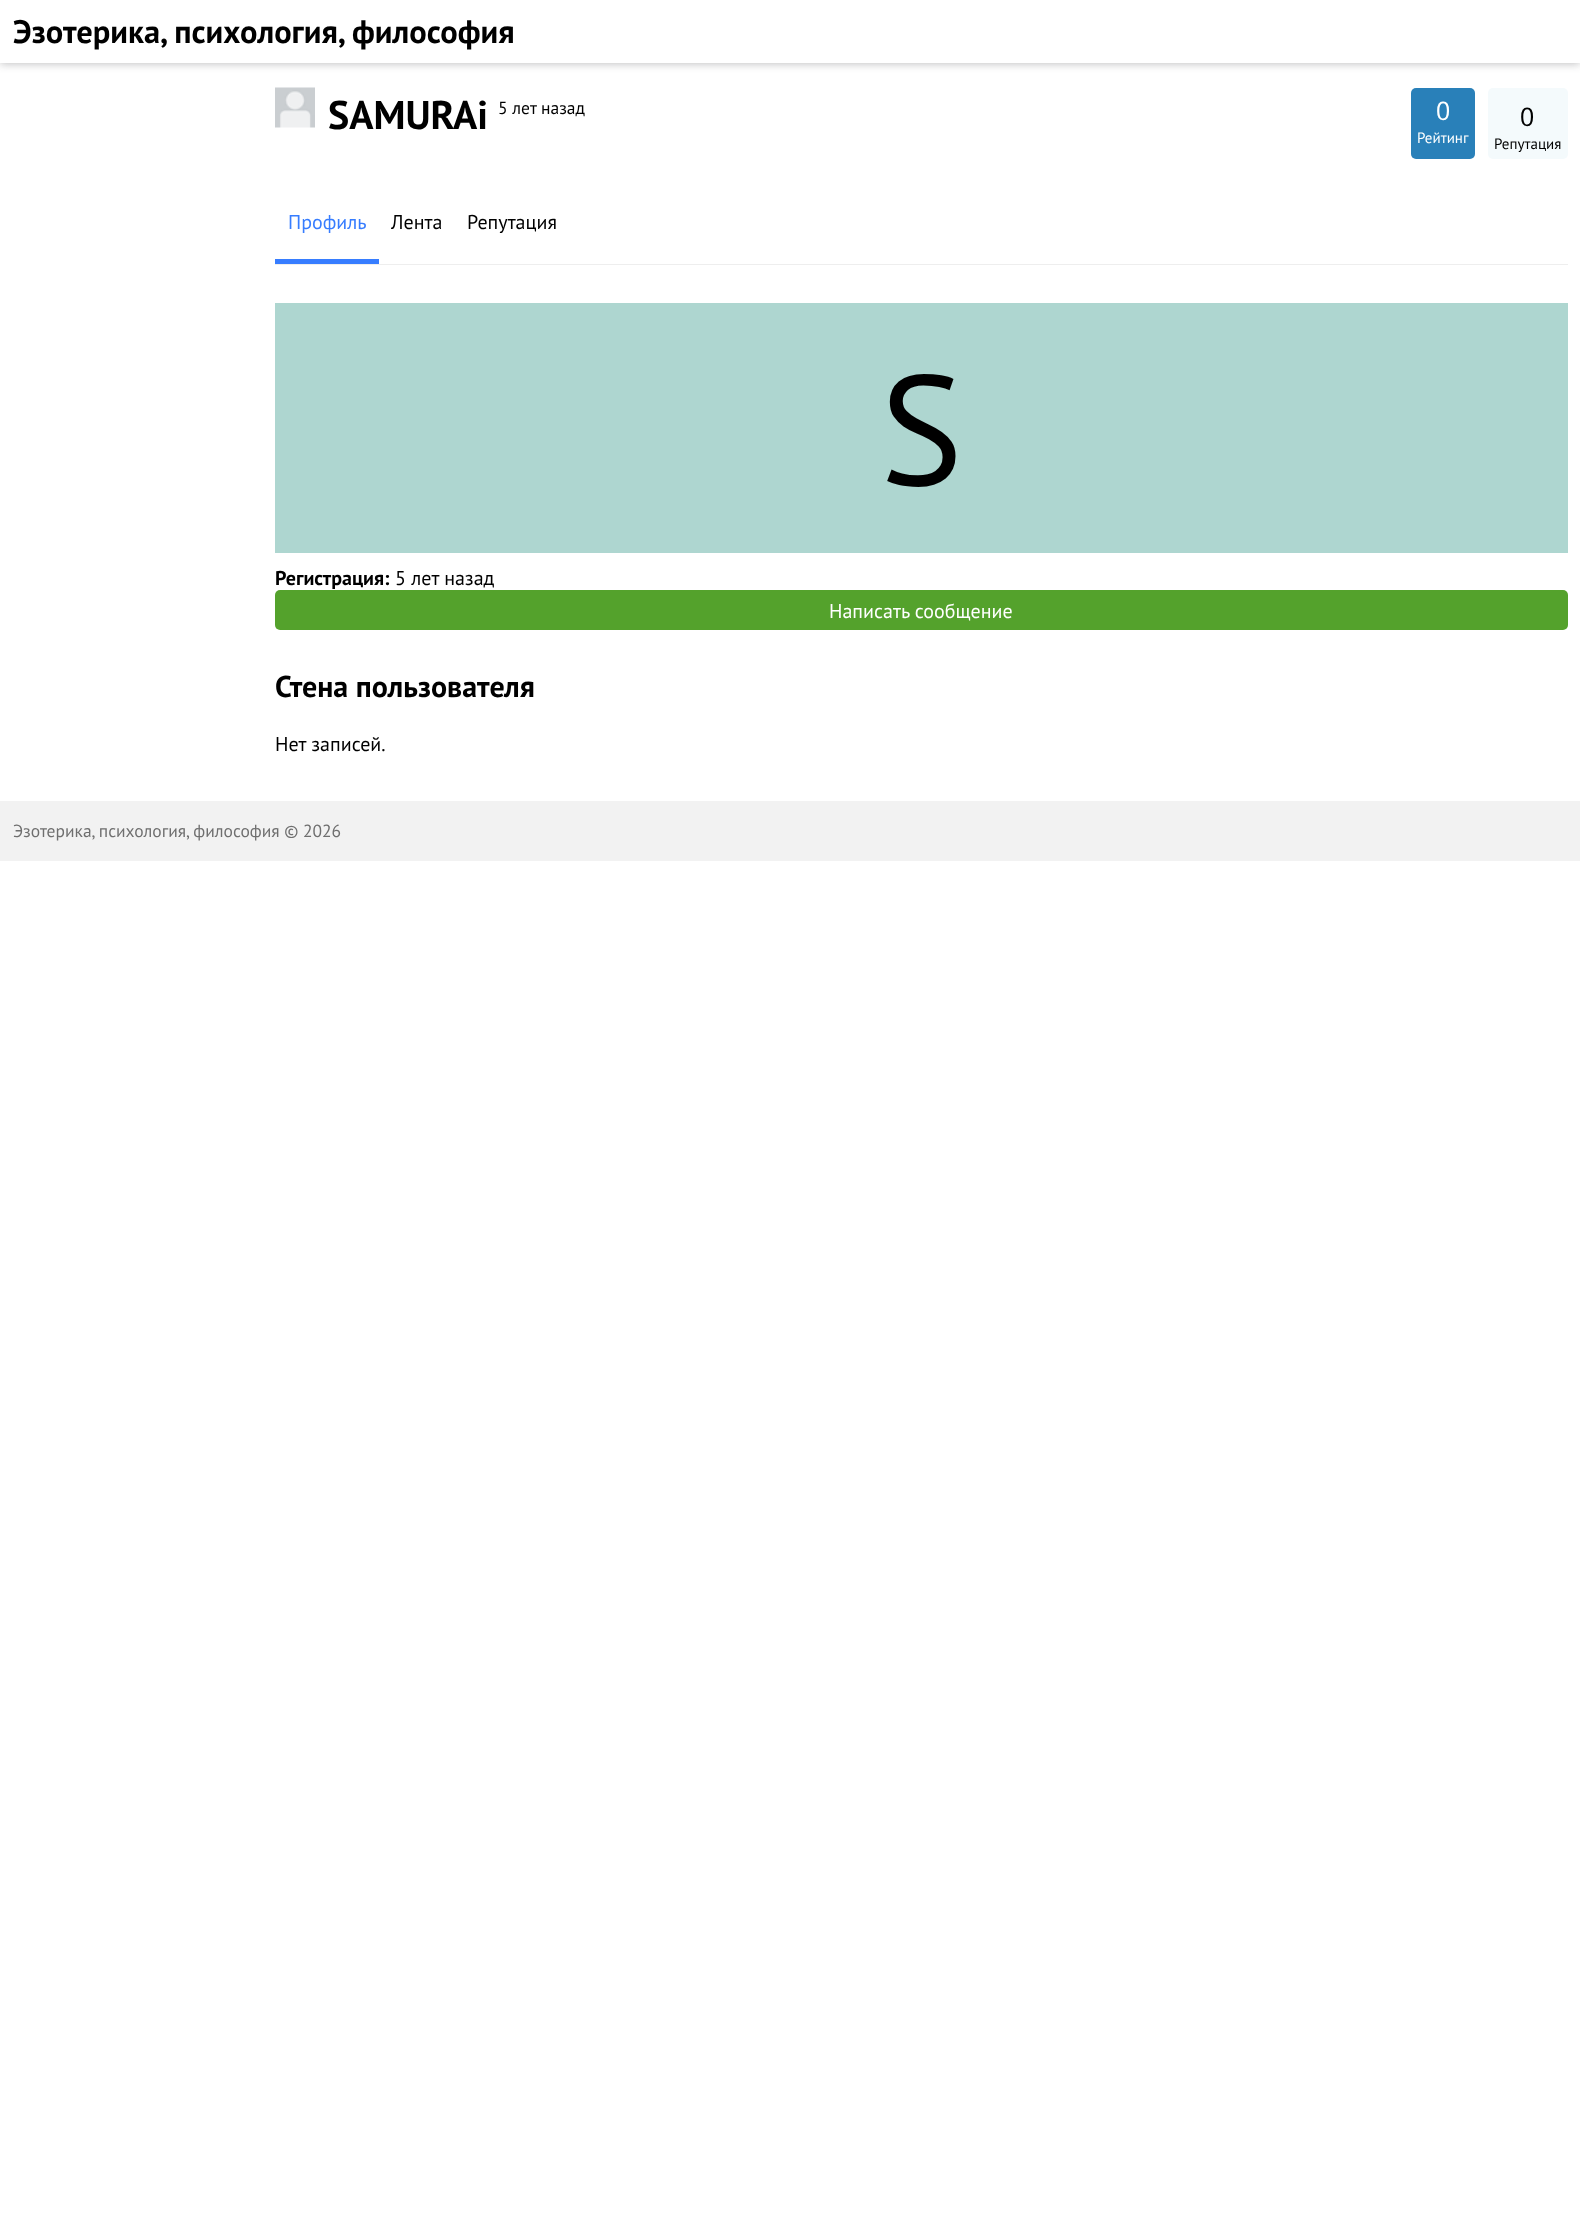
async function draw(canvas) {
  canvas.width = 1580
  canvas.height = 2238
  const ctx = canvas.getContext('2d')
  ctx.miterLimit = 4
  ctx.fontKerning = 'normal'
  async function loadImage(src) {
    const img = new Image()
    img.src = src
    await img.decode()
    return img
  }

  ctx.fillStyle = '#fff'
  ctx.fillRect(0, 0, 1580, 2238)
  ctx.fillStyle = '#20212447'
  ctx.filter = 'blur(4px)'
  ctx.beginPath()
  ctx.rect(0, 1, 1580, 63)
  ctx.fill()
  ctx.filter = 'none'
  ctx.fillStyle = '#fff'
  ctx.fillRect(0, 0, 1580, 63)
  ctx.font = 'bold 32.5px PT Sans'
  ctx.fillStyle = '#000'
  ctx.fillText('Эзотерика, психология, философия', 13, 43)
  ctx.drawImage(await loadImage('image0.png'), 275, 87, 40, 41)
  ctx.font = 'bold 40px PT Sans'
  ctx.fillText('SAMURAi', 328, 129)
  ctx.font = '17.5px PT Sans'
  ctx.fillText('5 лет назад', 498, 114)
  ctx.fillStyle = '#2980b9'
  ctx.beginPath()
  ctx.roundRect(1411, 88, 64, 71, 5)
  ctx.fill()
  ctx.font = '26px PT Sans'
  ctx.fillStyle = '#fff'
  ctx.fillText('0', 1436, 120)
  ctx.font = '15px PT Sans'
  ctx.fillText('Рейтинг', 1417, 143)
  ctx.fillStyle = '#f4fafc'
  ctx.beginPath()
  ctx.roundRect(1488, 88, 80, 71, 5)
  ctx.fill()
  ctx.font = '26px PT Sans'
  ctx.fillStyle = '#000'
  ctx.fillText('0', 1520, 126)
  ctx.font = '15px PT Sans'
  ctx.fillText('Репутация', 1494, 149)
  ctx.fillStyle = '#eee'
  ctx.fillRect(275, 264, 1293, 1)
  ctx.fillStyle = '#377dff'
  ctx.fillRect(275, 259, 104, 5)
  ctx.font = '20px PT Sans'
  ctx.fillText('Профиль', 288, 229)
  ctx.fillStyle = '#000'
  ctx.fillText('Лента', 391, 229)
  ctx.fillText('Репутация', 467, 229)
  ctx.fillStyle = '#aed6d0'
  ctx.fillRect(275, 303, 1293, 250)
  ctx.font = '156px PT Sans'
  ctx.fillStyle = '#000'
  ctx.fillText('S', 880, 485)
  ctx.font = 'bold 20px PT Sans'
  ctx.fillText('Регистрация:', 275, 585)
  ctx.font = '20px PT Sans'
  ctx.fillText('5 лет назад', 395, 585)
  ctx.fillStyle = '#54a22c'
  ctx.beginPath()
  ctx.roundRect(275, 590, 1293, 40, 5)
  ctx.fill()
  ctx.fillStyle = '#fff'
  ctx.fillText('Написать сообщение', 829, 618)
  ctx.font = 'bold 30px PT Sans'
  ctx.fillStyle = '#000'
  ctx.fillText('Стена пользователя', 275, 697)
  ctx.font = '20px PT Sans'
  ctx.fillText('Нет записей.', 275, 751)
  ctx.fillStyle = '#f2f2f2'
  ctx.fillRect(0, 801, 1580, 60)
  ctx.font = '17.5px PT Sans'
  ctx.fillStyle = '#6f6f6f'
  ctx.fillText('Эзотерика, психология, философия © 2026', 13, 837)
}

draw(document.querySelector('canvas'))
